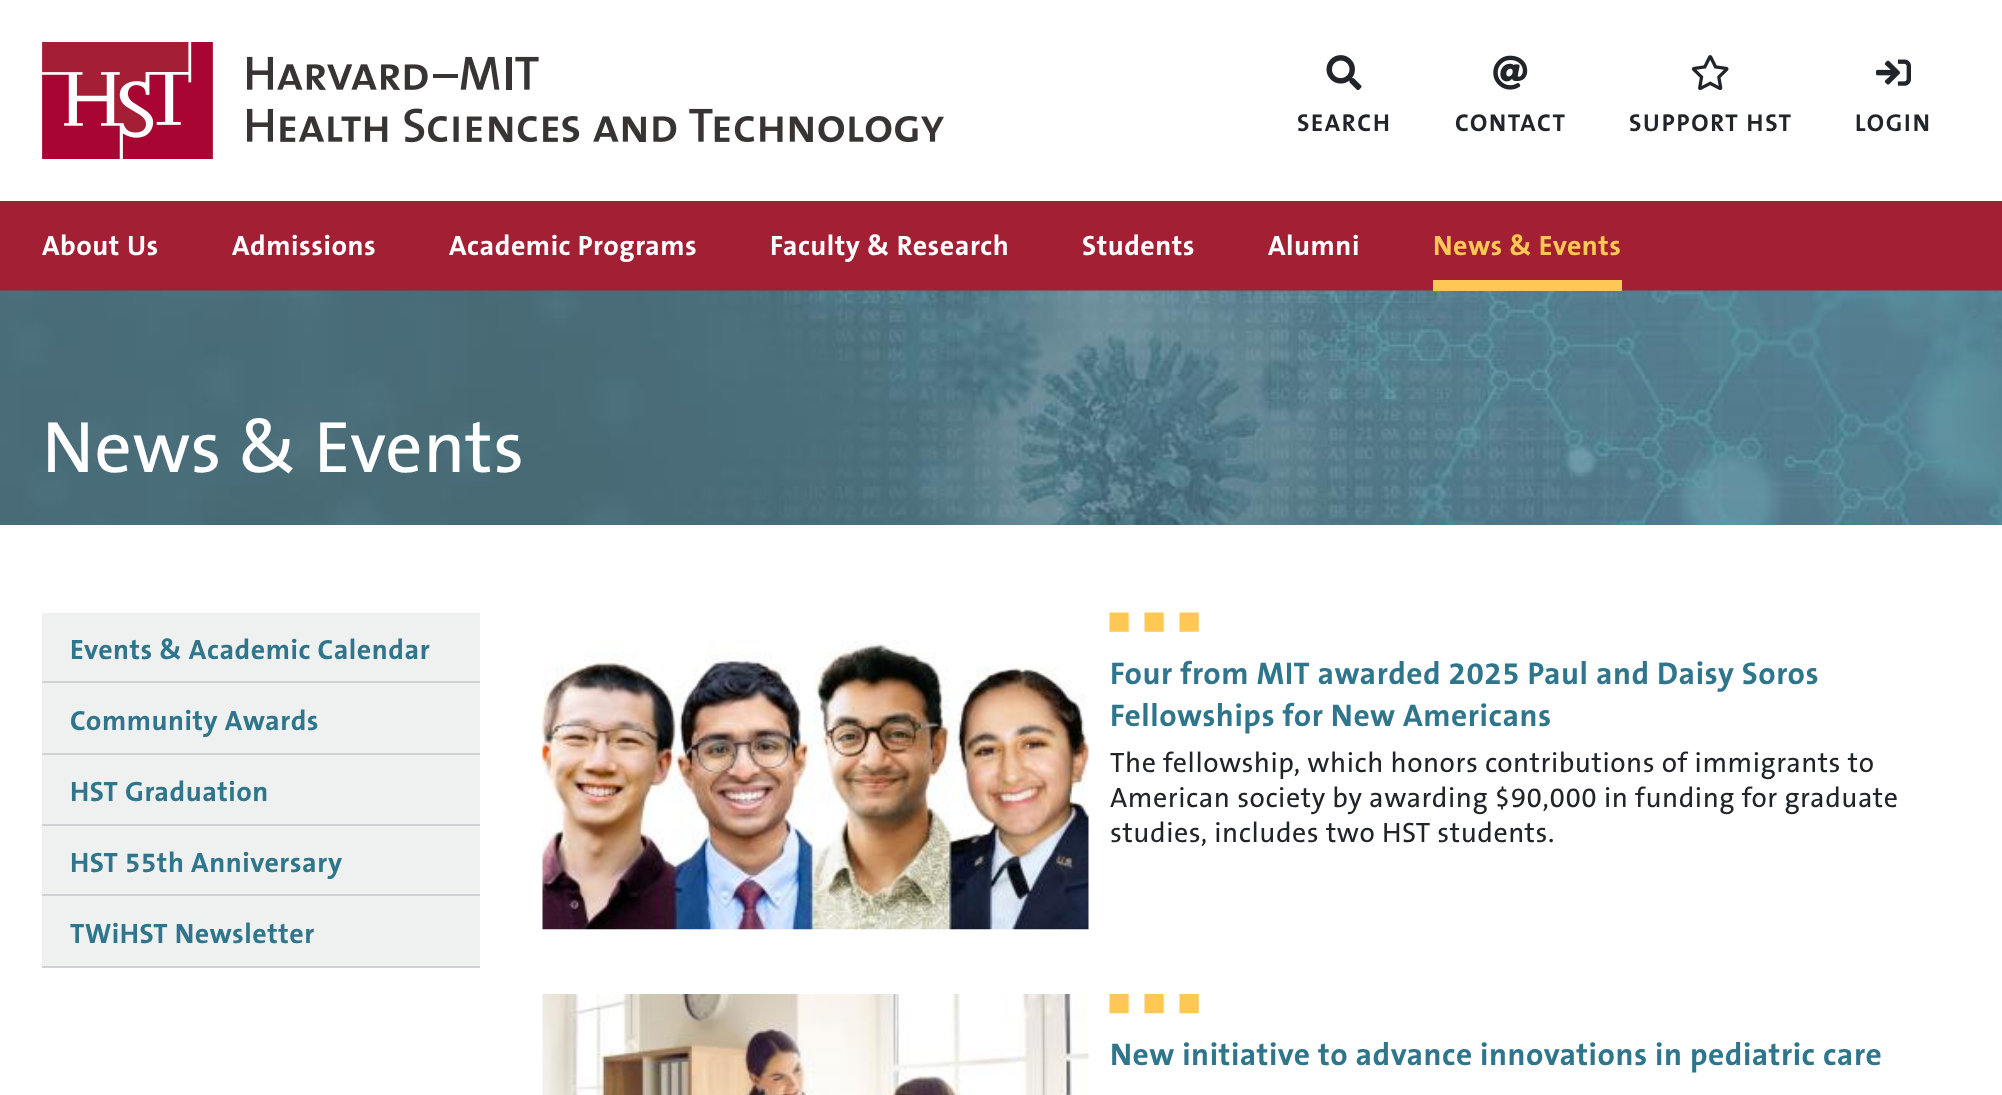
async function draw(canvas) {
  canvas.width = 2002
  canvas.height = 1095
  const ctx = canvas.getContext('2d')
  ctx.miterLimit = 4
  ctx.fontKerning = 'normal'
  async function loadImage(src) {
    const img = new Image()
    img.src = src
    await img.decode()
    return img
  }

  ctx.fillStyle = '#fff'
  ctx.fillRect(0, 0, 2002, 1095)
  ctx.drawImage(await loadImage('image0.png'), 42, 42, 902, 117)
  ctx.drawImage(await loadImage('image1.png'), 1326, 55, 36, 36)
  ctx.letterSpacing = '1.75px'
  ctx.font = 'bold 24.5px "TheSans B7"'
  ctx.fillStyle = '#212529'
  ctx.fillText('SEARCH', 1297, 131)
  ctx.drawImage(await loadImage('image2.png'), 1493, 55, 35, 35)
  ctx.fillText('CONTACT', 1455, 131)
  ctx.drawImage(await loadImage('image3.png'), 1691, 55, 38, 36)
  ctx.fillText('SUPPORT HST', 1629, 131)
  ctx.drawImage(await loadImage('image4.png'), 1876, 59, 35, 27)
  ctx.fillText('LOGIN', 1855, 131)
  ctx.fillStyle = '#a31f34'
  ctx.fillRect(0, 201, 2002, 90)
  ctx.letterSpacing = '0.55px'
  ctx.font = 'bold 28px "TheSans B7"'
  ctx.fillStyle = '#fff'
  ctx.fillText('About Us', 42, 255)
  ctx.fillText('Admissions', 232, 255)
  ctx.fillText('Academic Programs', 449, 255)
  ctx.fillText('Faculty & Research', 770, 255)
  ctx.fillText('Students', 1082, 255)
  ctx.fillText('Alumni', 1268, 255)
  ctx.drawImage(await loadImage('image5.png'), 0, 290, 2002, 235)
  ctx.fillStyle = '#ffc855'
  ctx.fillRect(1433, 280, 189, 11)
  ctx.fillText('News & Events', 1433, 255)
  ctx.font = '500 73.5px "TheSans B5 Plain"'
  ctx.fillStyle = '#fff'
  ctx.fillText('News & Events', 42, 472)
  ctx.fillStyle = '#eff0f0'
  ctx.fillRect(42, 613, 438, 353)
  ctx.fillStyle = '#cfd1d2'
  ctx.fillRect(42, 681, 438, 2)
  ctx.font = 'bold 28px "TheSans B7"'
  ctx.fillStyle = '#2f758c'
  ctx.fillText('Events & Academic Calendar', 70, 659)
  ctx.fillStyle = '#cfd1d2'
  ctx.fillRect(42, 753, 438, 2)
  ctx.fillStyle = '#2f758c'
  ctx.fillText('Community Awards', 70, 730)
  ctx.fillStyle = '#cfd1d2'
  ctx.fillRect(42, 824, 438, 2)
  ctx.fillStyle = '#2f758c'
  ctx.fillText('HST Graduation', 70, 801)
  ctx.fillStyle = '#cfd1d2'
  ctx.fillRect(42, 894, 438, 2)
  ctx.fillStyle = '#2f758c'
  ctx.fillText('HST 55th Anniversary', 70, 872)
  ctx.fillStyle = '#cfd1d2'
  ctx.fillRect(42, 966, 438, 2)
  ctx.fillStyle = '#2f758c'
  ctx.fillText('TWiHST Newsletter', 70, 943)
  ctx.drawImage(await loadImage('image6.png'), 542, 639, 547, 291)
  ctx.drawImage(await loadImage('image7.png'), 1109, 612, 90, 20)
  ctx.font = 'bold 31.5px "TheSans B7"'
  ctx.fillText('Four from MIT awarded 2025 Paul and Daisy Soros', 1110, 684)
  ctx.fillText('Fellowships for New Americans', 1110, 726)
  ctx.font = '500 28px "TheSans B5 Plain"'
  ctx.fillStyle = '#212529'
  ctx.fillText('The fellowship, which honors contributions of immigrants to', 1110, 772)
  ctx.fillText('American society by awarding $90,000 in funding for graduate', 1110, 807)
  ctx.fillText('studies, includes two HST students.', 1110, 842)
  ctx.drawImage(await loadImage('image8.png'), 542, 994, 547, 101)
  ctx.drawImage(await loadImage('image9.png'), 1109, 994, 90, 20)
  ctx.font = 'bold 31.5px "TheSans B7"'
  ctx.fillStyle = '#2f758c'
  ctx.fillText('New initiative to advance innovations in pediatric care', 1110, 1065)
}

draw(document.querySelector('canvas'))
